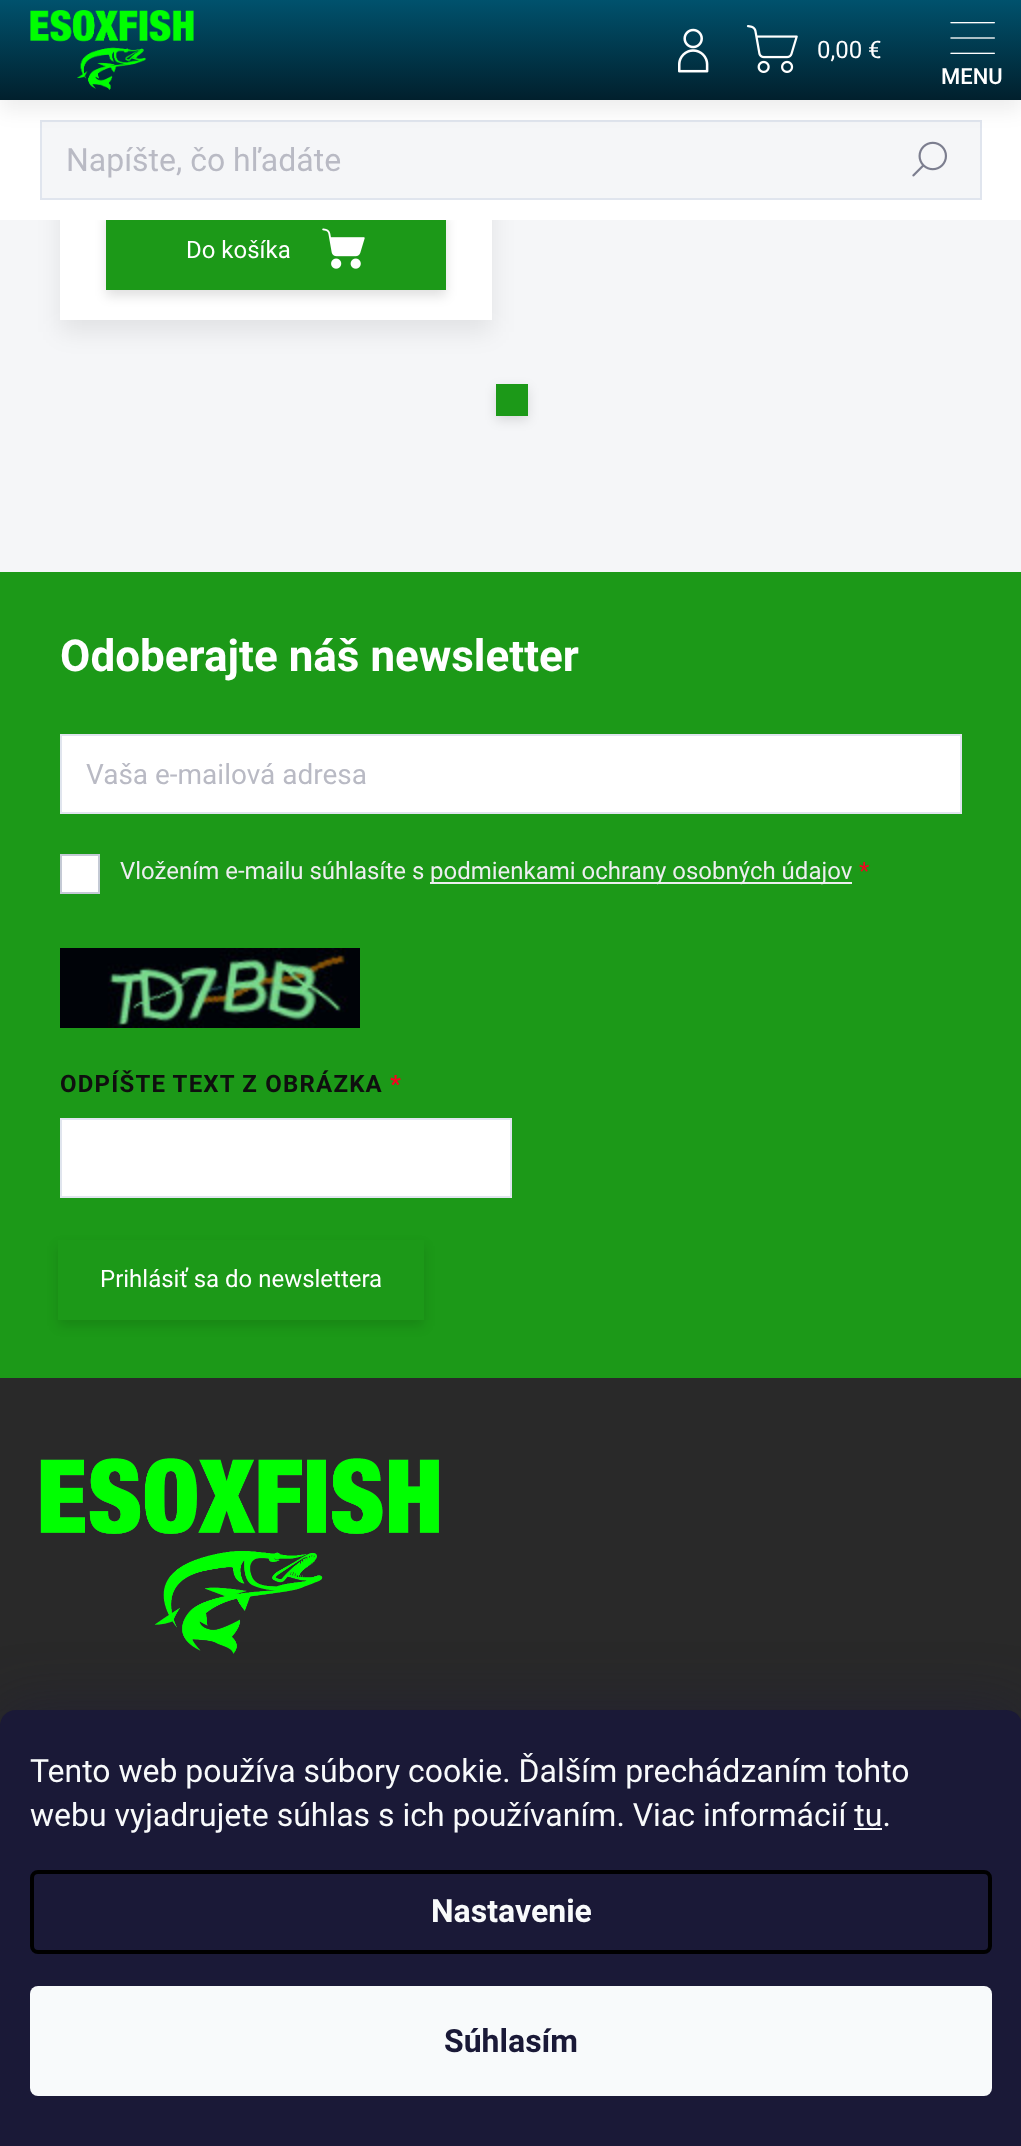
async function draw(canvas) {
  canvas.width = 1021
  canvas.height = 2146
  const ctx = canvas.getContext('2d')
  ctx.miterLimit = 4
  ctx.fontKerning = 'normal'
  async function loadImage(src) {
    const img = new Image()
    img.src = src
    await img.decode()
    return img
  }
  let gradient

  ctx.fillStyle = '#f5f6f8'
  ctx.fillRect(0, 0, 1021, 2146)
  ctx.fillStyle = '#00000014'
  ctx.filter = 'blur(12px)'
  ctx.beginPath()
  ctx.rect(60, -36, 432, 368)
  ctx.fill()
  ctx.filter = 'none'
  ctx.fillStyle = '#fff'
  ctx.fillRect(60, 220, 432, 100)
  ctx.fillStyle = '#0000001f'
  ctx.filter = 'blur(6px)'
  ctx.beginPath()
  ctx.rect(106, 216, 340, 80)
  ctx.fill()
  ctx.filter = 'none'
  ctx.fillStyle = '#fff'
  ctx.fillRect(0, 100, 1021, 120)
  ctx.fillStyle = '#f5f6f8'
  ctx.beginPath()
  ctx.rect(41, 121, 940, 78)
  ctx.fill()
  ctx.strokeStyle = '#e0e5ee'
  ctx.lineWidth = 2
  ctx.stroke()
  ctx.fillStyle = '#00000012'
  ctx.filter = 'blur(10px)'
  ctx.beginPath()
  ctx.rect(0, 10, 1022, 100)
  ctx.fill()
  ctx.filter = 'none'
  gradient = ctx.createLinearGradient(511, 0, 511, 100)
  gradient.addColorStop(0, '#00526d')
  gradient.addColorStop(1, '#01202d')
  ctx.fillStyle = gradient
  ctx.fillRect(0, 0, 1021, 100)
  ctx.drawImage(await loadImage('image0.png'), 30, 10, 164, 80)
  ctx.drawImage(await loadImage('image1.png'), 678, 28, 31, 45)
  ctx.drawImage(await loadImage('image2.png'), 746, 25, 52, 48)
  ctx.font = '24px Roboto'
  ctx.fillStyle = '#fff'
  ctx.fillText('0,00 €', 817, 58)
  ctx.drawImage(await loadImage('image3.png'), 950, 22, 45, 32)
  ctx.font = '500 22px Roboto'
  ctx.fillText('MENU', 941, 84)
  ctx.font = '32px Roboto'
  ctx.fillStyle = '#b9bac4'
  ctx.fillText('Napíšte, čo hľadáte', 66, 171)
  ctx.drawImage(await loadImage('image4.png'), 912, 141, 35, 36)
  ctx.fillStyle = '#1c9918'
  ctx.fillRect(106, 220, 340, 70)
  ctx.font = '24px Roboto'
  ctx.fillStyle = '#fff'
  ctx.fillText('Do košíka', 186, 258)
  ctx.drawImage(await loadImage('image5.png'), 322, 228, 43, 41)
  ctx.fillStyle = '#0000001f'
  ctx.filter = 'blur(6px)'
  ctx.beginPath()
  ctx.rect(496, 388, 32, 32)
  ctx.fill()
  ctx.filter = 'none'
  ctx.fillStyle = '#1c9918'
  ctx.fillRect(496, 384, 32, 32)
  ctx.fillStyle = '#292929'
  ctx.fillRect(0, 1378, 1021, 348)
  ctx.fillStyle = '#1c9918'
  ctx.fillRect(0, 572, 1021, 806)
  ctx.font = 'bold 44px Roboto'
  ctx.fillStyle = '#fff'
  ctx.fillText('Odoberajte náš newsletter', 60, 671)
  ctx.beginPath()
  ctx.rect(61, 735, 900, 78)
  ctx.fill()
  ctx.stroke()
  ctx.font = '28px Roboto'
  ctx.fillStyle = '#b9bac4'
  ctx.fillText('Vaša e-mailová adresa', 86, 784)
  ctx.fillStyle = '#fff'
  ctx.beginPath()
  ctx.rect(61, 855, 38, 38)
  ctx.fill()
  ctx.strokeStyle = '#c4cad5'
  ctx.stroke()
  ctx.font = '24px Roboto'
  ctx.fillStyle = '#edeef0'
  ctx.fillText('Vložením e-mailu súhlasíte s', 120, 879)
  ctx.fillRect(430, 882, 422, 2)
  ctx.fillText('podmienkami ochrany osobných údajov', 430, 879)
  ctx.fillStyle = '#f80120'
  ctx.fillText('*', 859, 879)
  ctx.drawImage(await loadImage('image6.png'), 60, 948, 300, 80)
  ctx.letterSpacing = '1.2px'
  ctx.font = 'bold 24px Roboto'
  ctx.fillStyle = '#0f0f0f'
  ctx.fillText('ODPÍŠTE TEXT Z OBRÁZKA', 60, 1092)
  ctx.fillStyle = '#f80120'
  ctx.fillText('*', 390, 1092)
  ctx.fillStyle = '#fff'
  ctx.beginPath()
  ctx.rect(61, 1119, 450, 78)
  ctx.fill()
  ctx.strokeStyle = '#e0e5ee'
  ctx.stroke()
  ctx.save()
  ctx.beginPath()
  ctx.moveTo(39, 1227)
  ctx.lineTo(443, 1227)
  ctx.lineTo(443, 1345)
  ctx.lineTo(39, 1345)
  ctx.closePath()
  ctx.moveTo(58, 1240)
  ctx.lineTo(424, 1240)
  ctx.lineTo(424, 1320)
  ctx.lineTo(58, 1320)
  ctx.closePath()
  ctx.clip('evenodd')
  ctx.fillStyle = '#0000001f'
  ctx.filter = 'blur(6px)'
  ctx.beginPath()
  ctx.rect(58, 1246, 366, 80)
  ctx.fill()
  ctx.filter = 'none'
  ctx.restore()
  ctx.letterSpacing = '0px'
  ctx.font = '24px Roboto'
  ctx.fillText('Prihlásiť sa do newslettera', 100, 1287)
  ctx.drawImage(await loadImage('image7.png'), 40, 1458, 399, 196)
  ctx.fillStyle = '#1b193980'
  ctx.filter = 'blur(30px)'
  ctx.beginPath()
  ctx.roundRect(0, 1710, 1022, 436, 16)
  ctx.fill()
  ctx.filter = 'none'
  ctx.fillStyle = '#1a1937'
  ctx.beginPath()
  ctx.moveTo(16, 1710)
  ctx.lineTo(1006, 1710)
  ctx.bezierCurveTo(1015, 1710, 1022, 1717, 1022, 1726)
  ctx.lineTo(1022, 2146)
  ctx.lineTo(0, 2146)
  ctx.lineTo(0, 1726)
  ctx.bezierCurveTo(0, 1717, 7, 1710, 16, 1710)
  ctx.closePath()
  ctx.fill()
  ctx.font = '32px Roboto'
  ctx.fillStyle = '#f8fafb'
  ctx.fillText('Tento web používa súbory cookie. Ďalším prechádzaním tohto', 30, 1782)
  ctx.fillText('webu vyjadrujete súhlas s ich používaním. Viac informácií tu.', 30, 1826)
  ctx.fillRect(854, 1828, 28, 2)
  ctx.beginPath()
  ctx.roundRect(32, 1872, 958, 80, 6)
  ctx.strokeStyle = '#000'
  ctx.lineWidth = 4
  ctx.stroke()
  ctx.font = 'bold 32px Roboto'
  ctx.fillText('Nastavenie', 431, 1922)
  ctx.beginPath()
  ctx.roundRect(30, 1986, 962, 110, 8)
  ctx.fill()
  ctx.fillStyle = '#1a1937'
  ctx.fillText('Súhlasím', 444, 2052)
}

draw(document.querySelector('canvas'))
